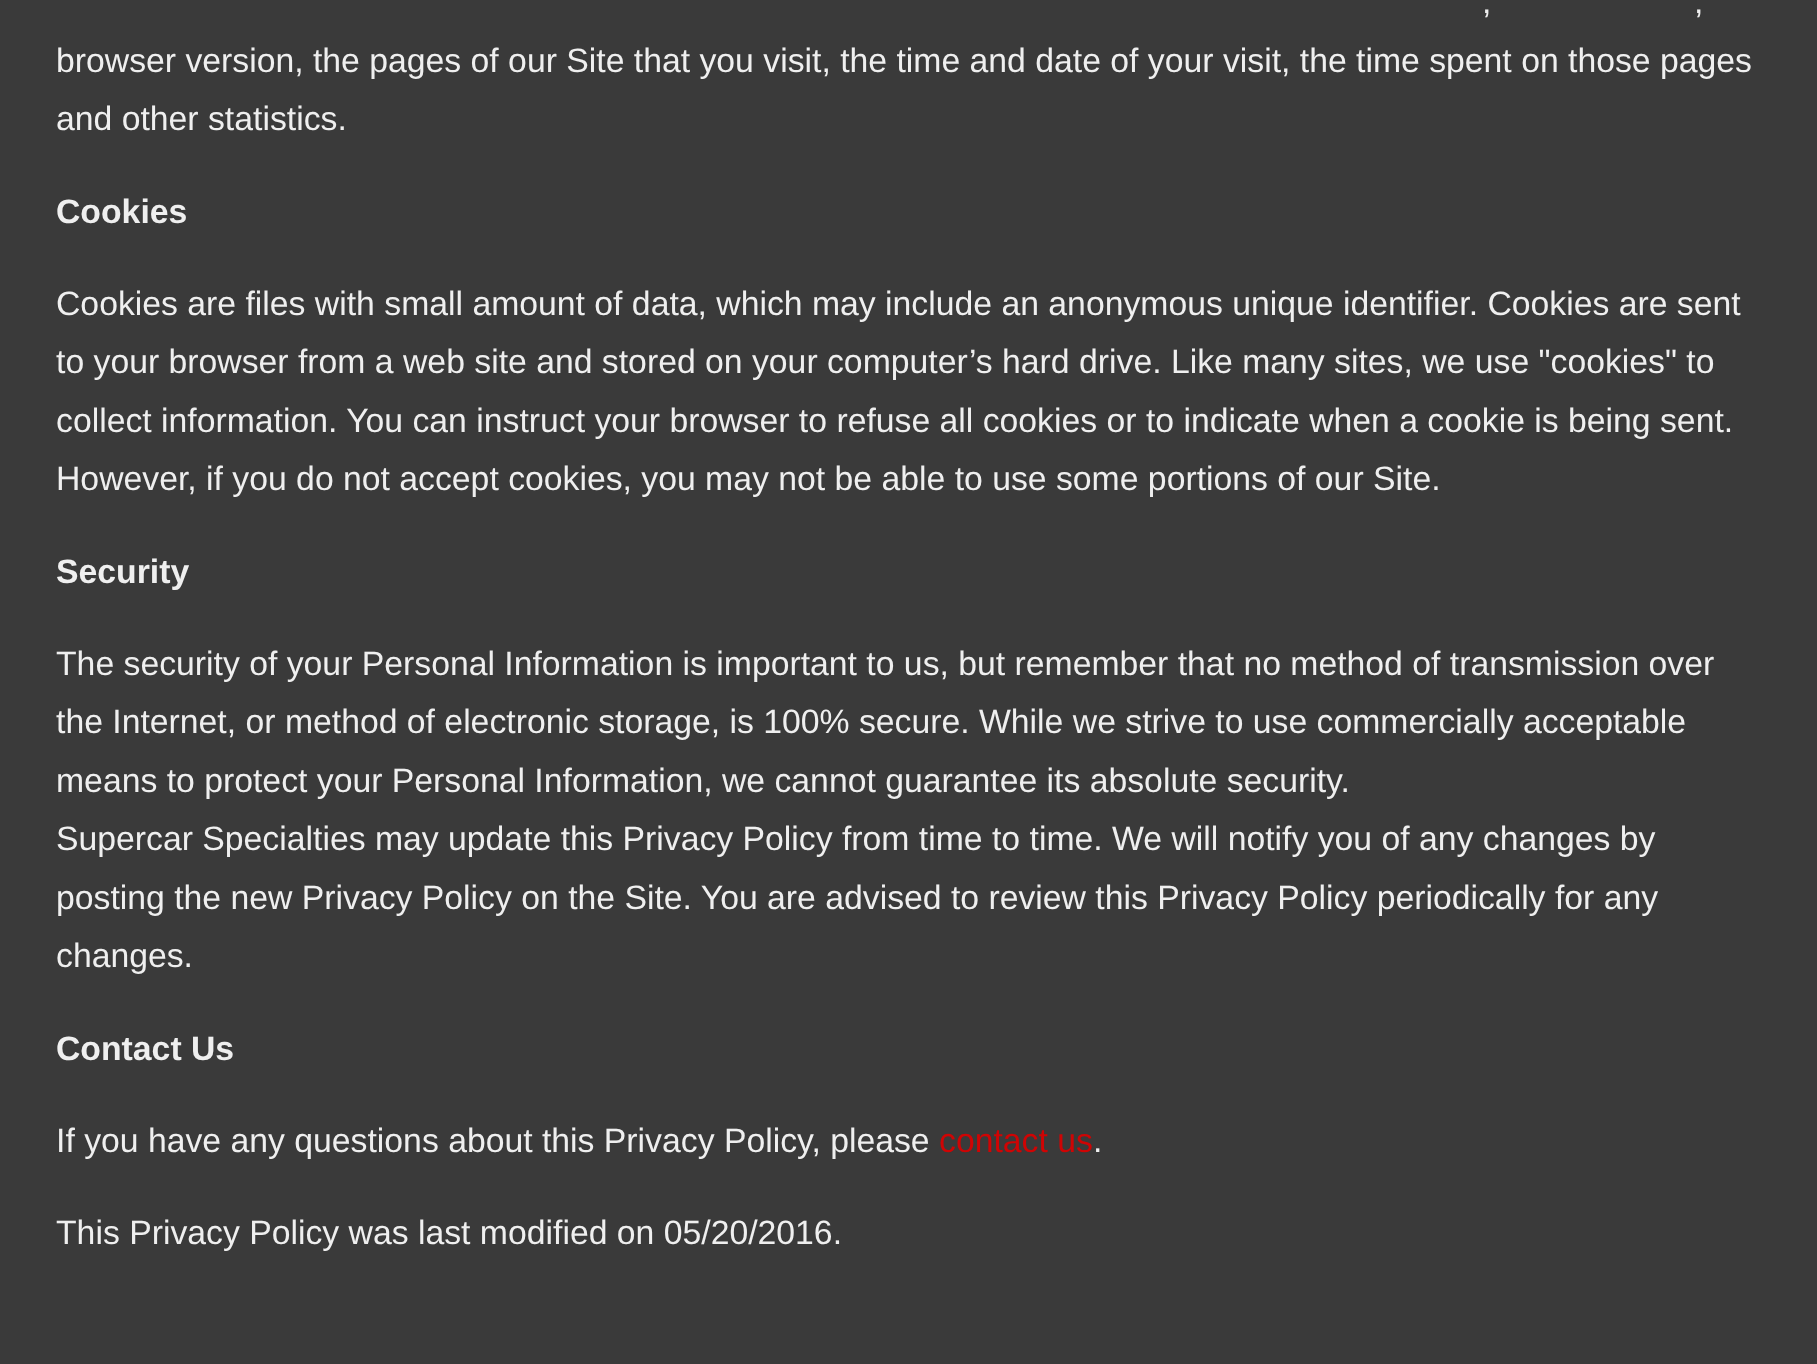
async function draw(canvas) {
  canvas.width = 1817
  canvas.height = 1364
  const ctx = canvas.getContext('2d')
  ctx.miterLimit = 4
  ctx.fontKerning = 'normal'

  ctx.fillStyle = '#3a3a3a'
  ctx.fillRect(0, 0, 1817, 1364)
  ctx.font = '33.75px Liberation Sans'
  ctx.fillStyle = '#efefef'
  ctx.fillText(',', 1482, 13)
  ctx.fillText(',', 1694, 13)
  ctx.fillText('browser version, the pages of our Site that you visit, the time and date of your visit, the time spent on those pages', 56, 72)
  ctx.fillText('and other statistics.', 56, 130)
  ctx.font = 'bold 33.75px Liberation Sans'
  ctx.fillText('Cookies', 56, 223)
  ctx.font = '33.75px Liberation Sans'
  ctx.fillText('Cookies are files with small amount of data, which may include an anonymous unique identifier. Cookies are sent', 56, 315)
  ctx.fillText('to your browser from a web site and stored on your computer’s hard drive. Like many sites, we use "cookies" to', 56, 373)
  ctx.fillText('collect information. You can instruct your browser to refuse all cookies or to indicate when a cookie is being sent.', 56, 432)
  ctx.fillText('However, if you do not accept cookies, you may not be able to use some portions of our Site.', 56, 490)
  ctx.font = 'bold 33.75px Liberation Sans'
  ctx.fillText('Security', 56, 583)
  ctx.font = '33.75px Liberation Sans'
  ctx.fillText('The security of your Personal Information is important to us, but remember that no method of transmission over', 56, 675)
  ctx.fillText('the Internet, or method of electronic storage, is 100% secure. While we strive to use commercially acceptable', 56, 733)
  ctx.fillText('means to protect your Personal Information, we cannot guarantee its absolute security.', 56, 792)
  ctx.fillText('Supercar Specialties may update this Privacy Policy from time to time. We will notify you of any changes by', 56, 850)
  ctx.fillText('posting the new Privacy Policy on the Site. You are advised to review this Privacy Policy periodically for any', 56, 909)
  ctx.fillText('changes.', 56, 967)
  ctx.font = 'bold 33.75px Liberation Sans'
  ctx.fillText('Contact Us', 56, 1060)
  ctx.font = '33.75px Liberation Sans'
  ctx.fillText('If you have any questions about this Privacy Policy, please', 56, 1152)
  ctx.fillStyle = '#cf0404'
  ctx.fillText('contact us', 939, 1152)
  ctx.fillStyle = '#efefef'
  ctx.fillText('.', 1093, 1152)
  ctx.fillText('This Privacy Policy was last modified on 05/20/2016.', 56, 1244)
}

draw(document.querySelector('canvas'))
